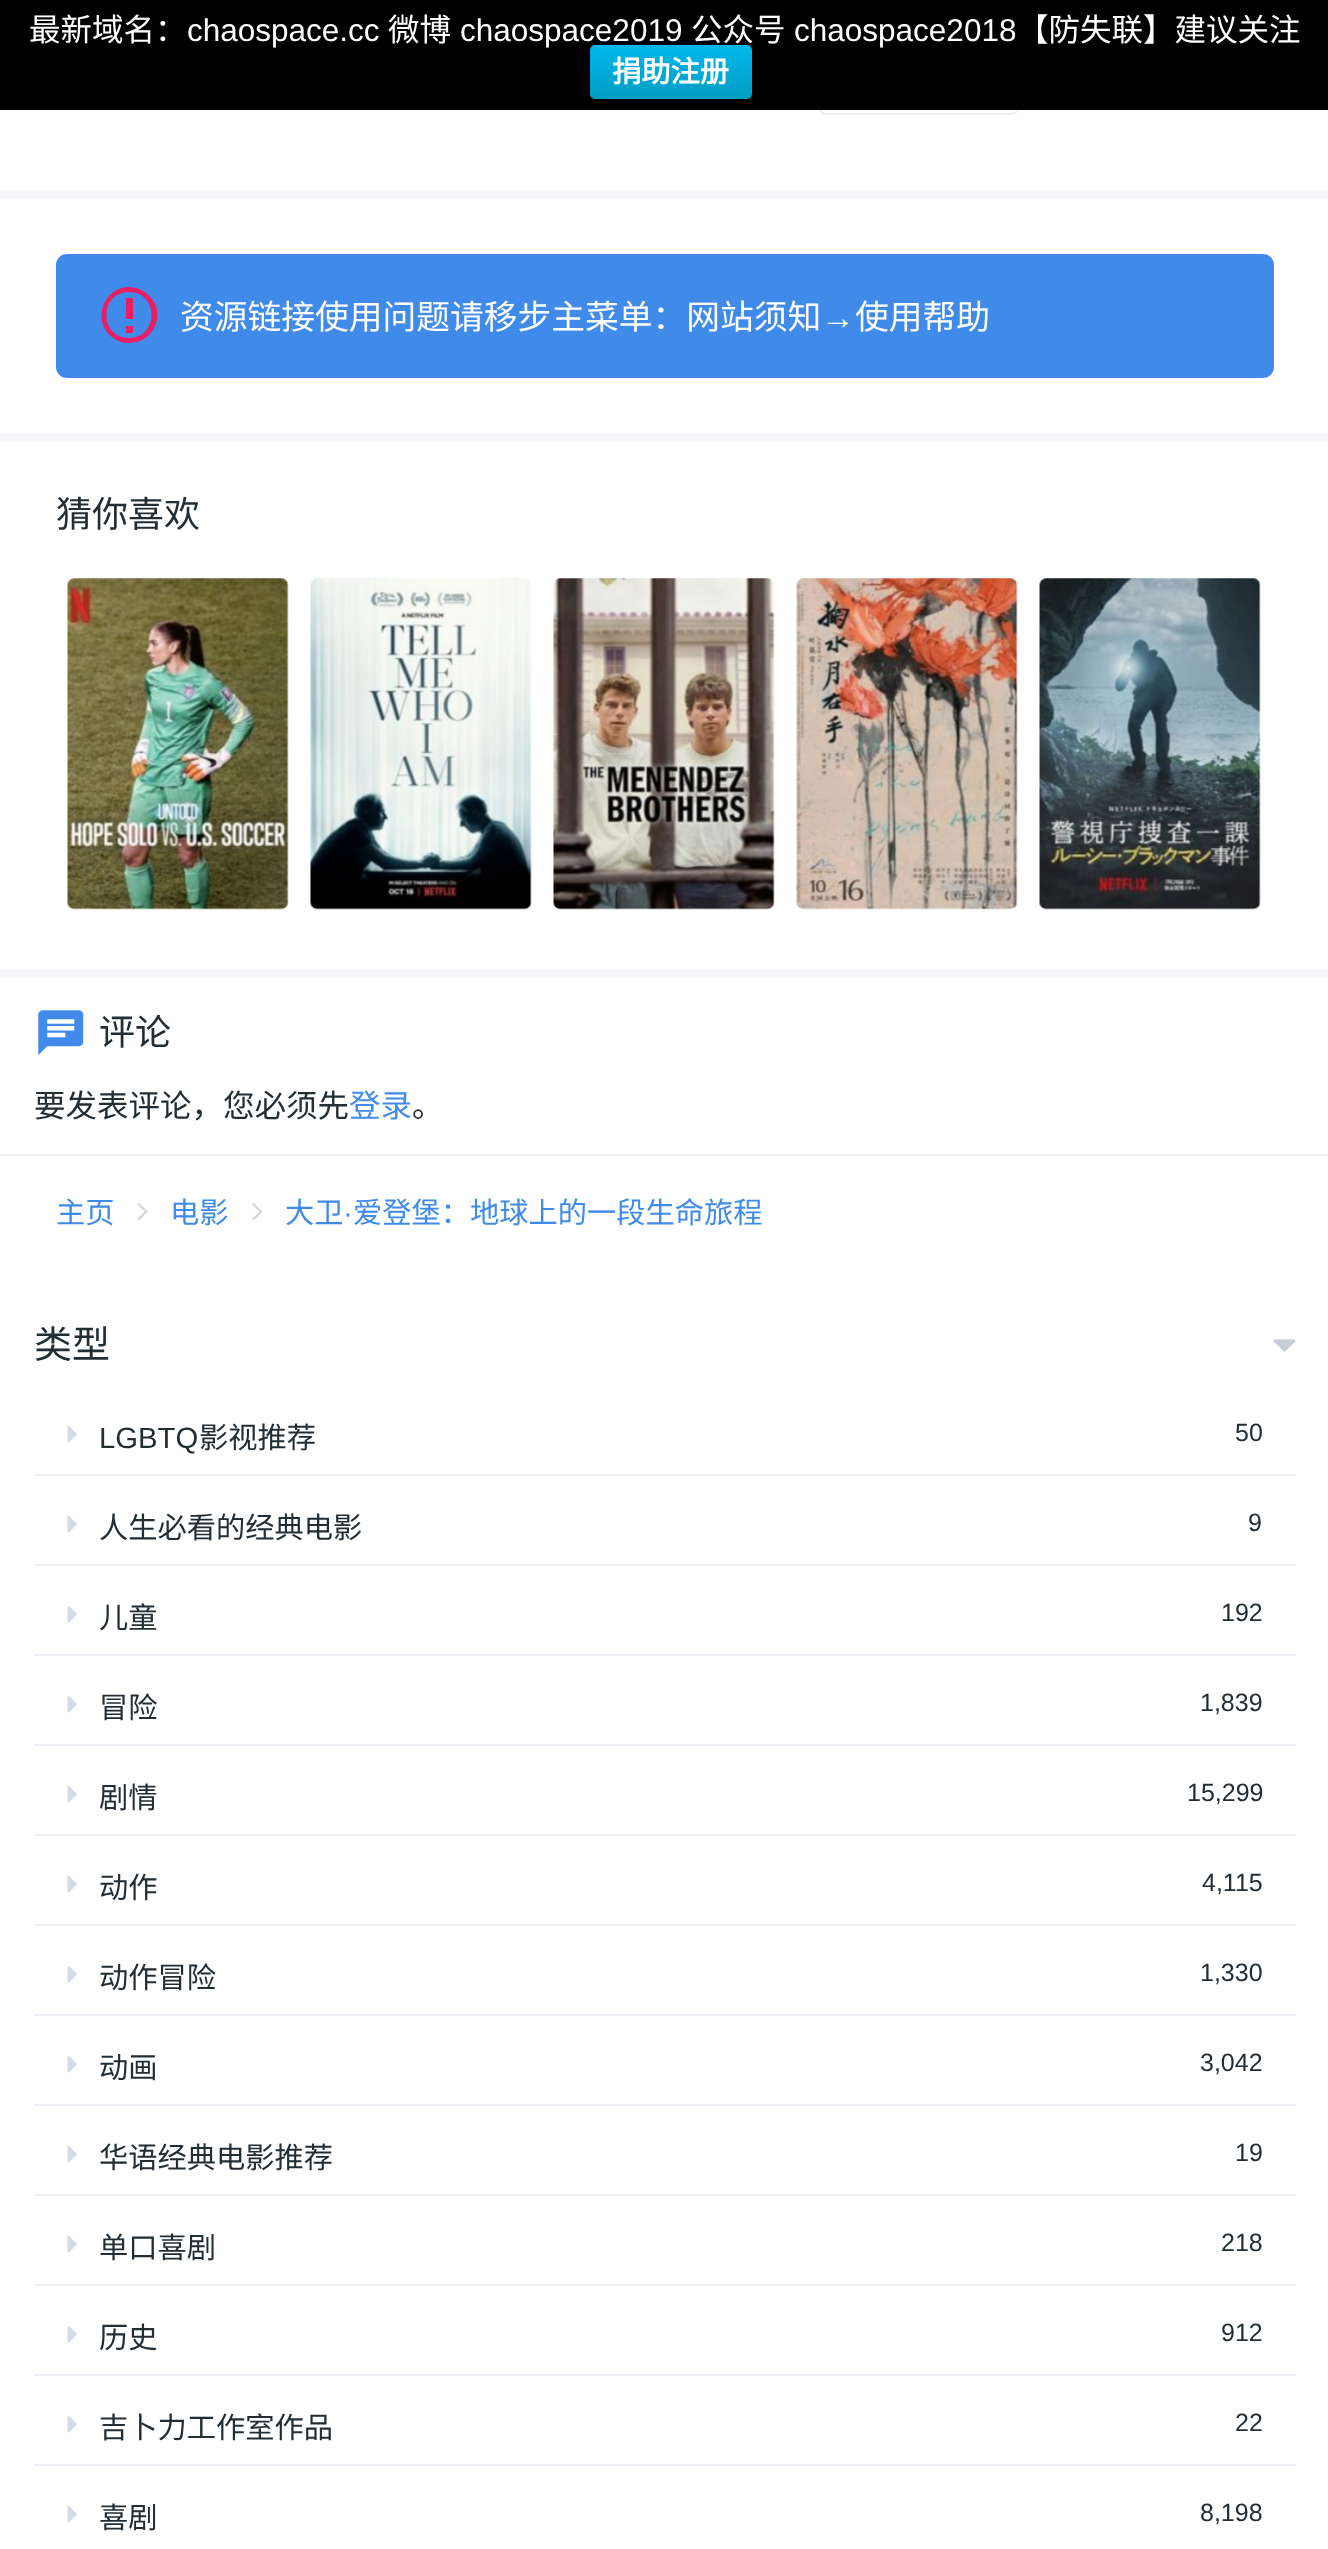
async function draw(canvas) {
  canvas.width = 1328
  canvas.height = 2549
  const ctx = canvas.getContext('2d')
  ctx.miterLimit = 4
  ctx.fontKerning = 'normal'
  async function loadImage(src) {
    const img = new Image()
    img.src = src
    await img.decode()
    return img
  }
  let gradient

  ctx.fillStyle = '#fff'
  ctx.fillRect(0, 0, 1328, 2549)
  ctx.beginPath()
  ctx.roundRect(820, 57, 198, 57, 6)
  ctx.strokeStyle = '#eceff5'
  ctx.lineWidth = 2
  ctx.stroke()
  ctx.fillStyle = '#000'
  ctx.fillRect(0, 0, 1328, 110)
  ctx.font = '31.5px Noto Sans CJK SC'
  ctx.fillStyle = '#fff'
  ctx.fillText('最新域名：', 29, 41)
  ctx.font = '31.5px Liberation Sans'
  ctx.fillText('chaospace.cc', 187, 41)
  ctx.font = '31.5px Noto Sans CJK SC'
  ctx.fillText('微博', 388, 41)
  ctx.font = '31.5px Liberation Sans'
  ctx.fillText('chaospace2019', 460, 41)
  ctx.font = '31.5px Noto Sans CJK SC'
  ctx.fillText('公众号', 691, 41)
  ctx.font = '31.5px Liberation Sans'
  ctx.fillText('chaospace2018', 794, 41)
  ctx.font = '31.5px Noto Sans CJK SC'
  ctx.fillText('【防失联】建议关注', 1017, 41)
  gradient = ctx.createLinearGradient(671, 45, 671, 99)
  gradient.addColorStop(0, '#00b7ea')
  gradient.addColorStop(1, '#009ec3')
  ctx.fillStyle = gradient
  ctx.beginPath()
  ctx.roundRect(590, 45, 162, 54, 5)
  ctx.fill()
  ctx.font = 'bold 29.25px Noto Sans CJK SC'
  ctx.fillStyle = '#fff'
  ctx.fillText('捐助注册', 612, 82)
  ctx.fillStyle = '#f5f7fa'
  ctx.fillRect(0, 191, 1328, 7)
  ctx.fillRect(0, 434, 1328, 7)
  ctx.fillStyle = '#408bea'
  ctx.beginPath()
  ctx.roundRect(56, 254, 1218, 124, 11)
  ctx.fill()
  ctx.fillStyle = '#e91e63'
  ctx.beginPath()
  ctx.moveTo(129, 292)
  ctx.bezierCurveTo(99, 292, 99, 338, 129, 338)
  ctx.bezierCurveTo(159, 338, 159, 292, 129, 292)
  ctx.closePath()
  ctx.moveTo(129, 287)
  ctx.bezierCurveTo(135, 287, 141, 289, 146, 293)
  ctx.bezierCurveTo(168, 309, 156, 343, 129, 343)
  ctx.bezierCurveTo(123, 343, 117, 341, 113, 338)
  ctx.bezierCurveTo(91, 322, 103, 287, 129, 287)
  ctx.closePath()
  ctx.moveTo(126, 326)
  ctx.lineTo(133, 326)
  ctx.lineTo(133, 333)
  ctx.lineTo(126, 333)
  ctx.closePath()
  ctx.moveTo(126, 298)
  ctx.lineTo(133, 298)
  ctx.lineTo(133, 319)
  ctx.lineTo(126, 319)
  ctx.closePath()
  ctx.fill()
  ctx.font = '33.75px Noto Sans CJK SC'
  ctx.fillStyle = '#fff'
  ctx.fillText('资源链接使用问题请移步主菜单：网站须知', 180, 329)
  ctx.font = '33.75px Liberation Sans'
  ctx.fillText('→', 821, 329)
  ctx.font = '33.75px Noto Sans CJK SC'
  ctx.fillText('使用帮助', 855, 329)
  ctx.fillStyle = '#f5f7fa'
  ctx.fillRect(0, 970, 1328, 7)
  ctx.font = '36px Noto Sans CJK SC'
  ctx.fillStyle = '#222d34'
  ctx.fillText('猜你喜欢', 56, 527)
  ctx.drawImage(await loadImage('image0.png'), 67, 578, 222, 332)
  ctx.drawImage(await loadImage('image1.png'), 310, 578, 222, 332)
  ctx.drawImage(await loadImage('image2.png'), 553, 578, 222, 332)
  ctx.drawImage(await loadImage('image3.png'), 796, 578, 222, 332)
  ctx.drawImage(await loadImage('image4.png'), 1039, 578, 222, 332)
  ctx.drawImage(await loadImage('image5.png'), 38, 1010, 46, 45)
  ctx.fillText('评论', 99, 1045)
  ctx.font = '31.5px Noto Sans CJK SC'
  ctx.fillText('要发表评论，您必须先', 34, 1117)
  ctx.fillStyle = '#408bea'
  ctx.fillText('登录', 349, 1117)
  ctx.fillStyle = '#222d34'
  ctx.fillText('。', 412, 1117)
  ctx.fillStyle = '#eceff5'
  ctx.fillRect(0, 1154, 1328, 2)
  ctx.font = '29.25px Noto Sans CJK SC'
  ctx.fillStyle = '#408bea'
  ctx.fillText('主页', 56, 1223)
  ctx.drawImage(await loadImage('image6.png'), 137, 1203, 11, 18)
  ctx.fillText('电影', 170, 1223)
  ctx.drawImage(await loadImage('image7.png'), 252, 1203, 11, 18)
  ctx.fillText('大卫', 285, 1223)
  ctx.font = '29.25px Liberation Sans'
  ctx.fillText('·', 343, 1223)
  ctx.font = '29.25px Noto Sans CJK SC'
  ctx.fillText('爱登堡：地球上的一段生命旅程', 353, 1223)
  ctx.font = '38px Noto Sans CJK SC'
  ctx.fillStyle = '#222d34'
  ctx.fillText('类型', 34, 1358)
  ctx.drawImage(await loadImage('image8.png'), 1273, 1339, 23, 13)
  ctx.fillStyle = '#eceff5'
  ctx.fillRect(34, 1474, 1262, 2)
  ctx.drawImage(await loadImage('image9.png'), 67, 1426, 10, 17)
  ctx.font = '29.25px Liberation Sans'
  ctx.fillStyle = '#222d34'
  ctx.fillText('LGBTQ', 99, 1448)
  ctx.font = '29.25px Noto Sans CJK SC'
  ctx.fillText('影视推荐', 199, 1448)
  ctx.font = '25px Liberation Sans'
  ctx.fillText('50', 1235, 1441)
  ctx.fillStyle = '#eceff5'
  ctx.fillRect(34, 1564, 1262, 2)
  ctx.drawImage(await loadImage('image9.png'), 67, 1516, 10, 17)
  ctx.font = '29.25px Noto Sans CJK SC'
  ctx.fillStyle = '#222d34'
  ctx.fillText('人生必看的经典电影', 99, 1538)
  ctx.font = '25px Liberation Sans'
  ctx.fillText('9', 1248, 1531)
  ctx.fillStyle = '#eceff5'
  ctx.fillRect(34, 1654, 1262, 2)
  ctx.drawImage(await loadImage('image9.png'), 67, 1606, 10, 17)
  ctx.font = '29.25px Noto Sans CJK SC'
  ctx.fillStyle = '#222d34'
  ctx.fillText('儿童', 99, 1628)
  ctx.font = '25px Liberation Sans'
  ctx.fillText('192', 1221, 1621)
  ctx.fillStyle = '#eceff5'
  ctx.fillRect(34, 1744, 1262, 2)
  ctx.drawImage(await loadImage('image9.png'), 67, 1696, 10, 17)
  ctx.font = '29.25px Noto Sans CJK SC'
  ctx.fillStyle = '#222d34'
  ctx.fillText('冒险', 99, 1718)
  ctx.font = '25px Liberation Sans'
  ctx.fillText('1,839', 1200, 1711)
  ctx.fillStyle = '#eceff5'
  ctx.fillRect(34, 1834, 1262, 2)
  ctx.drawImage(await loadImage('image9.png'), 67, 1786, 10, 17)
  ctx.font = '29.25px Noto Sans CJK SC'
  ctx.fillStyle = '#222d34'
  ctx.fillText('剧情', 99, 1808)
  ctx.font = '25px Liberation Sans'
  ctx.fillText('15,299', 1187, 1801)
  ctx.fillStyle = '#eceff5'
  ctx.fillRect(34, 1924, 1262, 2)
  ctx.drawImage(await loadImage('image9.png'), 67, 1876, 10, 17)
  ctx.font = '29.25px Noto Sans CJK SC'
  ctx.fillStyle = '#222d34'
  ctx.fillText('动作', 99, 1898)
  ctx.font = '25px Liberation Sans'
  ctx.fillText('4,115', 1202, 1891)
  ctx.fillStyle = '#eceff5'
  ctx.fillRect(34, 2014, 1262, 2)
  ctx.drawImage(await loadImage('image9.png'), 67, 1966, 10, 17)
  ctx.font = '29.25px Noto Sans CJK SC'
  ctx.fillStyle = '#222d34'
  ctx.fillText('动作冒险', 99, 1988)
  ctx.font = '25px Liberation Sans'
  ctx.fillText('1,330', 1200, 1981)
  ctx.fillStyle = '#eceff5'
  ctx.fillRect(34, 2104, 1262, 2)
  ctx.drawImage(await loadImage('image9.png'), 67, 2056, 10, 17)
  ctx.font = '29.25px Noto Sans CJK SC'
  ctx.fillStyle = '#222d34'
  ctx.fillText('动画', 99, 2078)
  ctx.font = '25px Liberation Sans'
  ctx.fillText('3,042', 1200, 2071)
  ctx.fillStyle = '#eceff5'
  ctx.fillRect(34, 2194, 1262, 2)
  ctx.drawImage(await loadImage('image9.png'), 67, 2146, 10, 17)
  ctx.font = '29.25px Noto Sans CJK SC'
  ctx.fillStyle = '#222d34'
  ctx.fillText('华语经典电影推荐', 99, 2168)
  ctx.font = '25px Liberation Sans'
  ctx.fillText('19', 1235, 2161)
  ctx.fillStyle = '#eceff5'
  ctx.fillRect(34, 2284, 1262, 2)
  ctx.drawImage(await loadImage('image9.png'), 67, 2236, 10, 17)
  ctx.font = '29.25px Noto Sans CJK SC'
  ctx.fillStyle = '#222d34'
  ctx.fillText('单口喜剧', 99, 2258)
  ctx.font = '25px Liberation Sans'
  ctx.fillText('218', 1221, 2251)
  ctx.fillStyle = '#eceff5'
  ctx.fillRect(34, 2374, 1262, 2)
  ctx.drawImage(await loadImage('image9.png'), 67, 2326, 10, 17)
  ctx.font = '29.25px Noto Sans CJK SC'
  ctx.fillStyle = '#222d34'
  ctx.fillText('历史', 99, 2348)
  ctx.font = '25px Liberation Sans'
  ctx.fillText('912', 1221, 2341)
  ctx.fillStyle = '#eceff5'
  ctx.fillRect(34, 2464, 1262, 2)
  ctx.drawImage(await loadImage('image9.png'), 67, 2416, 10, 17)
  ctx.font = '29.25px Noto Sans CJK SC'
  ctx.fillStyle = '#222d34'
  ctx.fillText('吉卜力工作室作品', 99, 2438)
  ctx.font = '25px Liberation Sans'
  ctx.fillText('22', 1235, 2431)
  ctx.drawImage(await loadImage('image9.png'), 67, 2506, 10, 17)
  ctx.font = '29.25px Noto Sans CJK SC'
  ctx.fillText('喜剧', 99, 2528)
  ctx.font = '25px Liberation Sans'
  ctx.fillText('8,198', 1200, 2521)
}

draw(document.querySelector('canvas'))
